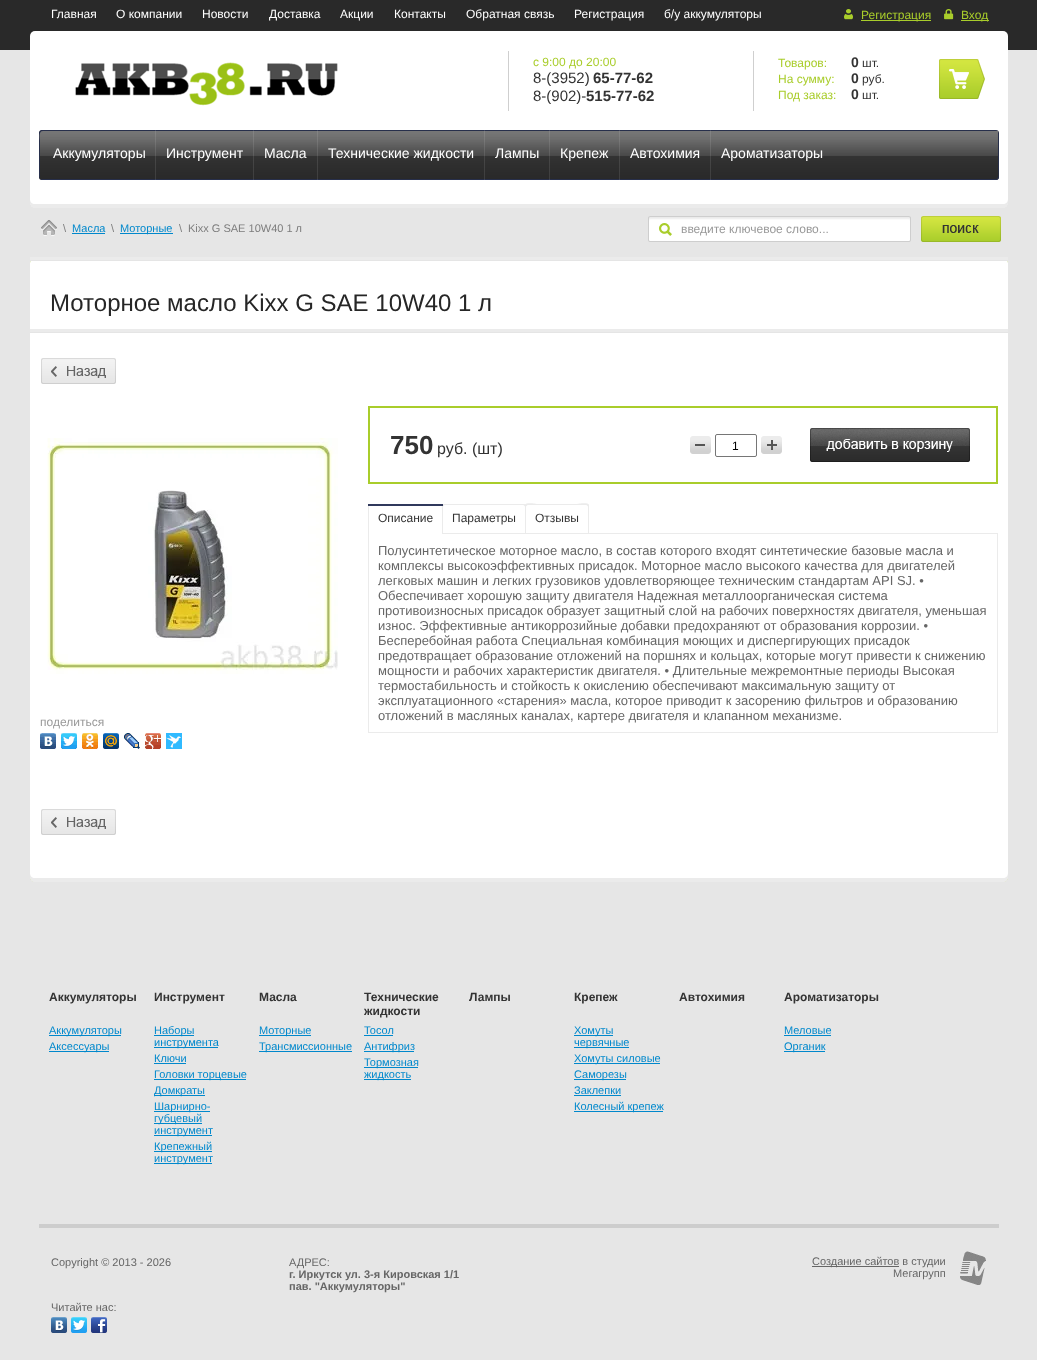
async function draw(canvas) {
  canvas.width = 1037
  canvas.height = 1360
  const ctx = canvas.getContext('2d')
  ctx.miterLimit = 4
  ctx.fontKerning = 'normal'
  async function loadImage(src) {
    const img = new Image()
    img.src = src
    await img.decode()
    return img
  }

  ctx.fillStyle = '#e6e6e6'
  ctx.fillRect(0, 0, 1037, 1360)
  ctx.fillStyle = '#292929'
  ctx.fillRect(0, 0, 1037, 50)
  ctx.font = '12px Liberation Sans'
  ctx.fillStyle = '#fff'
  ctx.fillText('Главная', 51, 18)
  ctx.fillText('О компании', 116, 18)
  ctx.fillText('Новости', 202, 18)
  ctx.fillText('Доставка', 269, 18)
  ctx.fillText('Акции', 340, 18)
  ctx.fillText('Контакты', 394, 18)
  ctx.fillText('Обратная связь', 466, 18)
  ctx.fillText('Регистрация', 574, 18)
  ctx.fillText('б/у аккумуляторы', 664, 18)
  ctx.drawImage(await loadImage('image0.png'), 844, 9, 9, 11)
  ctx.fillStyle = '#a9cd2b'
  ctx.fillRect(861, 20, 70, 1)
  ctx.fillText('Регистрация', 861, 19)
  ctx.drawImage(await loadImage('image1.png'), 944, 9, 10, 11)
  ctx.fillRect(961, 20, 28, 1)
  ctx.fillText('Вход', 961, 19)
  ctx.fillStyle = '#00000033'
  ctx.filter = 'blur(0.5px)'
  ctx.beginPath()
  ctx.roundRect(30, 31, 978, 177, 5)
  ctx.fill()
  ctx.filter = 'none'
  ctx.fillStyle = '#fff'
  ctx.beginPath()
  ctx.roundRect(30, 31, 978, 177, 5)
  ctx.fill()
  ctx.fillStyle = '#ebebeb'
  ctx.beginPath()
  ctx.moveTo(30, 199)
  ctx.lineTo(30, 203)
  ctx.bezierCurveTo(30, 206, 32, 208, 35, 208)
  ctx.lineTo(1003, 208)
  ctx.bezierCurveTo(1006, 208, 1008, 206, 1008, 203)
  ctx.lineTo(1008, 199)
  ctx.bezierCurveTo(1008, 202, 1006, 204, 1003, 204)
  ctx.lineTo(35, 204)
  ctx.bezierCurveTo(32, 204, 30, 202, 30, 199)
  ctx.closePath()
  ctx.fill()
  ctx.drawImage(await loadImage('image2.png'), 75, 62, 263, 44)
  ctx.fillStyle = '#cfcfcf'
  ctx.fillRect(508, 51, 1, 60)
  ctx.fillStyle = '#a9cd2b'
  ctx.fillText('с 9:00 до 20:00', 533, 66)
  ctx.font = '15px Liberation Sans'
  ctx.fillStyle = '#333'
  ctx.fillText('8-(3952)', 533, 83)
  ctx.font = 'bold 15px Liberation Sans'
  ctx.fillText('65-77-62', 593, 83)
  ctx.font = '15px Liberation Sans'
  ctx.fillText('8-(902)-', 533, 101)
  ctx.font = 'bold 15px Liberation Sans'
  ctx.fillText('515-77-62', 586, 101)
  ctx.fillStyle = '#cfcfcf'
  ctx.fillRect(753, 51, 1, 60)
  ctx.font = '12px Liberation Sans'
  ctx.fillStyle = '#a9cd2b'
  ctx.fillText('Товаров:', 778, 67)
  ctx.font = 'bold 14px Liberation Sans'
  ctx.fillStyle = '#333'
  ctx.fillText('0', 851, 67)
  ctx.font = '12px Liberation Sans'
  ctx.fillText('шт.', 862, 67)
  ctx.fillStyle = '#a9cd2b'
  ctx.fillText('На сумму:', 778, 83)
  ctx.font = 'bold 14px Liberation Sans'
  ctx.fillStyle = '#333'
  ctx.fillText('0', 851, 83)
  ctx.font = '12px Liberation Sans'
  ctx.fillText('руб.', 862, 83)
  ctx.fillStyle = '#a9cd2b'
  ctx.fillText('Под заказ:', 778, 99)
  ctx.font = 'bold 14px Liberation Sans'
  ctx.fillStyle = '#333'
  ctx.fillText('0', 851, 99)
  ctx.font = '12px Liberation Sans'
  ctx.fillText('шт.', 862, 99)
  ctx.drawImage(await loadImage('image3.png'), 939, 59, 46, 40)
  ctx.drawImage(await loadImage('image4.png'), 39, 130, 960, 50)
  ctx.fillStyle = '#272f4b'
  ctx.beginPath()
  ctx.moveTo(40, 179)
  ctx.lineTo(42, 180)
  ctx.lineTo(997, 180)
  ctx.lineTo(999, 178)
  ctx.lineTo(999, 133)
  ctx.lineTo(998, 131)
  ctx.lineTo(998, 169)
  ctx.bezierCurveTo(998, 171, 1000, 179, 995, 179)
  ctx.closePath()
  ctx.fill()
  ctx.beginPath()
  ctx.moveTo(43, 131)
  ctx.lineTo(998, 131)
  ctx.lineTo(996, 130)
  ctx.lineTo(41, 130)
  ctx.lineTo(39, 132)
  ctx.lineTo(39, 177)
  ctx.lineTo(40, 179)
  ctx.lineTo(40, 141)
  ctx.bezierCurveTo(40, 139, 38, 131, 43, 131)
  ctx.closePath()
  ctx.fill()
  ctx.font = '14px Liberation Sans'
  ctx.fillStyle = '#fff'
  ctx.fillText('Аккумуляторы', 53, 158)
  ctx.fillStyle = '#ffffff1a'
  ctx.fillRect(155, 130, 1, 50)
  ctx.fillStyle = '#fff'
  ctx.fillText('Инструмент', 166, 158)
  ctx.fillStyle = '#ffffff1a'
  ctx.fillRect(253, 130, 1, 50)
  ctx.fillStyle = '#fff'
  ctx.fillText('Масла', 264, 158)
  ctx.fillStyle = '#ffffff1a'
  ctx.fillRect(317, 130, 1, 50)
  ctx.fillStyle = '#fff'
  ctx.fillText('Технические жидкости', 328, 158)
  ctx.fillStyle = '#ffffff1a'
  ctx.fillRect(484, 130, 1, 50)
  ctx.fillStyle = '#fff'
  ctx.fillText('Лампы', 495, 158)
  ctx.fillStyle = '#ffffff1a'
  ctx.fillRect(549, 130, 1, 50)
  ctx.fillStyle = '#fff'
  ctx.fillText('Крепеж', 560, 158)
  ctx.fillStyle = '#ffffff1a'
  ctx.fillRect(619, 130, 1, 50)
  ctx.fillStyle = '#fff'
  ctx.fillText('Автохимия', 630, 158)
  ctx.fillStyle = '#ffffff1a'
  ctx.fillRect(710, 130, 1, 50)
  ctx.fillStyle = '#fff'
  ctx.fillText('Ароматизаторы', 721, 158)
  ctx.drawImage(await loadImage('image5.png'), 41, 220, 16, 16)
  ctx.font = '11px Liberation Sans'
  ctx.fillStyle = '#7c7c7c'
  ctx.fillText('\\', 63, 232)
  ctx.fillStyle = '#08c'
  ctx.fillText('Масла', 72, 232)
  ctx.fillRect(72, 233, 33, 1)
  ctx.fillStyle = '#7c7c7c'
  ctx.fillText('\\', 111, 232)
  ctx.fillStyle = '#08c'
  ctx.fillRect(120, 233, 53, 1)
  ctx.fillText('Моторные', 120, 232)
  ctx.fillStyle = '#7c7c7c'
  ctx.fillText('\\', 179, 232)
  ctx.fillText('Kixx G SAE 10W40 1 л', 188, 232)
  ctx.drawImage(await loadImage('image6.png'), 648, 216, 353, 26)
  ctx.font = '12px Liberation Sans'
  ctx.fillStyle = '#999'
  ctx.fillText('введите ключевое слово...', 681, 233)
  ctx.fillStyle = '#98b827'
  ctx.filter = 'blur(0.5px)'
  ctx.beginPath()
  ctx.roundRect(30, 258, 978, 624, 5)
  ctx.fill()
  ctx.filter = 'none'
  ctx.fillStyle = '#fff'
  ctx.beginPath()
  ctx.roundRect(30, 258, 978, 624, 5)
  ctx.fill()
  ctx.fillStyle = '#ebebeb'
  ctx.beginPath()
  ctx.moveTo(30, 873)
  ctx.lineTo(30, 877)
  ctx.bezierCurveTo(30, 880, 32, 882, 35, 882)
  ctx.lineTo(1003, 882)
  ctx.bezierCurveTo(1006, 882, 1008, 880, 1008, 877)
  ctx.lineTo(1008, 873)
  ctx.bezierCurveTo(1008, 876, 1006, 878, 1003, 878)
  ctx.lineTo(35, 878)
  ctx.bezierCurveTo(32, 878, 30, 876, 30, 873)
  ctx.closePath()
  ctx.fill()
  ctx.filter = 'blur(0.5px)'
  ctx.beginPath()
  ctx.rect(30, 257, 978, 3)
  ctx.fill()
  ctx.filter = 'none'
  ctx.fillRect(30, 259, 978, 1)
  ctx.fillStyle = '#e5e5e5'
  ctx.fillRect(30, 260, 978, 1)
  ctx.font = '24px Liberation Sans'
  ctx.fillStyle = '#262626'
  ctx.fillText('Моторное масло Kixx G SAE 10W40 1 л', 50, 311)
  ctx.fillStyle = '#ebebeb'
  ctx.filter = 'blur(0.5px)'
  ctx.beginPath()
  ctx.rect(30, 329, 978, 3)
  ctx.fill()
  ctx.filter = 'none'
  ctx.fillRect(30, 331, 978, 1)
  ctx.fillStyle = '#e5e5e5'
  ctx.fillRect(30, 332, 978, 1)
  ctx.drawImage(await loadImage('image7.png'), 41, 358, 75, 26)
  ctx.strokeStyle = '#a9cd2b'
  ctx.lineWidth = 2
  ctx.strokeRect(369, 407, 628, 76)
  ctx.font = 'bold 26px Liberation Sans'
  ctx.fillStyle = '#333'
  ctx.fillText('750', 390, 454)
  ctx.font = '16px Liberation Sans'
  ctx.fillText('руб. (шт)', 437, 454)
  ctx.drawImage(await loadImage('image8.png'), 690, 436, 21, 18)
  ctx.beginPath()
  ctx.roundRect(715.5, 434.5, 41, 22, 1.5)
  ctx.strokeStyle = '#767676'
  ctx.lineWidth = 1
  ctx.stroke()
  ctx.font = '12px Liberation Sans'
  ctx.fillStyle = '#000'
  ctx.fillText('1', 732, 450)
  ctx.drawImage(await loadImage('image9.png'), 761, 436, 21, 18)
  ctx.drawImage(await loadImage('image10.png'), 810, 428, 160, 34)
  ctx.fillStyle = '#ebebeb'
  ctx.beginPath()
  ctx.moveTo(443, 505)
  ctx.lineTo(523, 505)
  ctx.bezierCurveTo(524, 505, 525, 506, 525, 507)
  ctx.lineTo(525, 533)
  ctx.lineTo(526, 533)
  ctx.lineTo(526, 510)
  ctx.bezierCurveTo(526, 509, 527, 504, 524, 504)
  ctx.lineTo(444, 504)
  ctx.lineTo(442, 505)
  ctx.closePath()
  ctx.fill()
  ctx.beginPath()
  ctx.moveTo(445, 505)
  ctx.lineTo(526, 505)
  ctx.lineTo(524, 504)
  ctx.lineTo(444, 504)
  ctx.bezierCurveTo(441, 504, 442, 509, 442, 510)
  ctx.lineTo(442, 533)
  ctx.lineTo(443, 533)
  ctx.lineTo(443, 507)
  ctx.bezierCurveTo(443, 506, 444, 505, 445, 505)
  ctx.closePath()
  ctx.fill()
  ctx.fillRect(442, 504, 1, 1)
  ctx.fillRect(368, 504, 1, 29)
  ctx.fillStyle = '#30395c'
  ctx.fillRect(368, 504, 75, 2)
  ctx.strokeStyle = '#ebebeb'
  ctx.strokeRect(368.5, 533.5, 629, 199)
  ctx.fillStyle = '#fff'
  ctx.fillRect(369, 533, 73, 1)
  ctx.fillStyle = '#333'
  ctx.fillText('Описание', 378, 522)
  ctx.fillText('Параметры', 452, 522)
  ctx.fillStyle = '#fff'
  ctx.beginPath()
  ctx.roundRect(525, 504, 64, 29, [2, 2, 0, 0])
  ctx.fill()
  ctx.fillStyle = '#ebebeb'
  ctx.beginPath()
  ctx.moveTo(526, 505)
  ctx.lineTo(586, 505)
  ctx.bezierCurveTo(587, 505, 588, 506, 588, 507)
  ctx.lineTo(588, 533)
  ctx.lineTo(589, 533)
  ctx.lineTo(589, 505)
  ctx.lineTo(587, 504)
  ctx.lineTo(537, 504)
  ctx.bezierCurveTo(536, 504, 526, 502, 525, 505)
  ctx.closePath()
  ctx.fill()
  ctx.beginPath()
  ctx.moveTo(528, 505)
  ctx.lineTo(589, 505)
  ctx.bezierCurveTo(588, 502, 578, 504, 577, 504)
  ctx.lineTo(527, 504)
  ctx.lineTo(525, 505)
  ctx.lineTo(525, 533)
  ctx.lineTo(526, 533)
  ctx.lineTo(526, 507)
  ctx.bezierCurveTo(526, 506, 527, 505, 528, 505)
  ctx.closePath()
  ctx.fill()
  ctx.fillStyle = '#333'
  ctx.fillText('Отзывы', 535, 522)
  ctx.font = '13px Liberation Sans'
  ctx.fillStyle = '#666'
  ctx.fillText('Полусинтетическое моторное масло, в состав которого входят синтетические базовые масла и', 378, 555)
  ctx.fillText('комплексы высокоэффективных присадок. Моторное масло высокого качества для двигателей', 378, 570)
  ctx.fillText('легковых машин и легких грузовиков удовлетворяющее техническим стандартам API SJ. •', 378, 585)
  ctx.fillText('Обеспечивает хорошую защиту двигателя Надежная металлоорганическая система', 378, 600)
  ctx.fillText('противоизносных присадок образует защитный слой на рабочих поверхностях двигателя, уменьшая', 378, 615)
  ctx.fillText('износ. Эффективные антикоррозийные добавки предохраняют от образования коррозии. •', 378, 630)
  ctx.fillText('Бесперебойная работа Специальная комбинация моющих и диспергирующих присадок', 378, 645)
  ctx.fillText('предотвращает образование отложений на поршнях и кольцах, которые могут привести к снижению', 378, 660)
  ctx.fillText('мощности и рабочих характеристик двигателя. • Длительные межремонтные периоды Высокая', 378, 675)
  ctx.fillText('термостабильность и стойкость к окислению обеспечивают максимальную защиту от', 378, 690)
  ctx.fillText('эксплуатационного «старения» масла, которое приводит к засорению фильтров и образованию', 378, 705)
  ctx.fillText('отложений в масляных каналах, картере двигателя и клапанном механизме.', 378, 720)
  ctx.drawImage(await loadImage('image11.png'), 47, 438, 291, 236)
  ctx.font = '12px Liberation Sans'
  ctx.fillStyle = '#999'
  ctx.fillText('поделиться', 40, 726)
  ctx.drawImage(await loadImage('image12.png'), 40, 733, 16, 16)
  ctx.drawImage(await loadImage('image13.png'), 61, 733, 16, 16)
  ctx.drawImage(await loadImage('image14.png'), 82, 733, 16, 16)
  ctx.drawImage(await loadImage('image15.png'), 103, 733, 16, 16)
  ctx.drawImage(await loadImage('image16.png'), 124, 733, 16, 16)
  ctx.drawImage(await loadImage('image17.png'), 145, 733, 16, 16)
  ctx.drawImage(await loadImage('image18.png'), 166, 733, 16, 16)
  ctx.drawImage(await loadImage('image7.png'), 41, 809, 75, 26)
  ctx.font = 'bold 12px Liberation Sans'
  ctx.fillStyle = '#333'
  ctx.fillText('Аккумуляторы', 49, 1001)
  ctx.fillStyle = '#08c'
  ctx.fillRect(49, 1035, 72, 1)
  ctx.font = '11px Liberation Sans'
  ctx.fillText('Аккумуляторы', 49, 1034)
  ctx.fillRect(49, 1051, 60, 1)
  ctx.fillText('Аксессуары', 49, 1050)
  ctx.font = 'bold 12px Liberation Sans'
  ctx.fillStyle = '#333'
  ctx.fillText('Инструмент', 154, 1001)
  ctx.fillStyle = '#08c'
  ctx.fillRect(154, 1035, 40, 1)
  ctx.font = '11px Liberation Sans'
  ctx.fillText('Наборы', 154, 1034)
  ctx.fillRect(154, 1047, 64, 1)
  ctx.fillText('инструмента', 154, 1046)
  ctx.fillText('Ключи', 154, 1062)
  ctx.fillRect(154, 1063, 32, 1)
  ctx.fillRect(154, 1079, 92, 1)
  ctx.fillText('Головки торцевые', 154, 1078)
  ctx.fillRect(154, 1095, 51, 1)
  ctx.fillText('Домкраты', 154, 1094)
  ctx.fillRect(154, 1111, 56, 1)
  ctx.fillText('Шарнирно-', 154, 1110)
  ctx.fillRect(154, 1123, 48, 1)
  ctx.fillText('губцевый', 154, 1122)
  ctx.fillRect(154, 1135, 58, 1)
  ctx.fillText('инструмент', 154, 1134)
  ctx.fillRect(154, 1151, 58, 1)
  ctx.fillText('Крепежный', 154, 1150)
  ctx.fillRect(154, 1163, 58, 1)
  ctx.fillText('инструмент', 154, 1162)
  ctx.font = 'bold 12px Liberation Sans'
  ctx.fillStyle = '#333'
  ctx.fillText('Масла', 259, 1001)
  ctx.fillStyle = '#08c'
  ctx.fillRect(259, 1035, 52, 1)
  ctx.font = '11px Liberation Sans'
  ctx.fillText('Моторные', 259, 1034)
  ctx.fillRect(259, 1051, 93, 1)
  ctx.fillText('Трансмиссионные', 259, 1050)
  ctx.font = 'bold 12px Liberation Sans'
  ctx.fillStyle = '#333'
  ctx.fillText('Технические', 364, 1001)
  ctx.fillText('жидкости', 364, 1015)
  ctx.font = '11px Liberation Sans'
  ctx.fillStyle = '#08c'
  ctx.fillText('Тосол', 364, 1034)
  ctx.fillRect(364, 1035, 29, 1)
  ctx.fillRect(364, 1051, 50, 1)
  ctx.fillText('Антифриз', 364, 1050)
  ctx.fillRect(364, 1067, 54, 1)
  ctx.fillText('Тормозная', 364, 1066)
  ctx.fillRect(364, 1079, 47, 1)
  ctx.fillText('жидкость', 364, 1078)
  ctx.font = 'bold 12px Liberation Sans'
  ctx.fillStyle = '#333'
  ctx.fillText('Лампы', 469, 1001)
  ctx.fillText('Крепеж', 574, 1001)
  ctx.fillStyle = '#08c'
  ctx.fillRect(574, 1035, 39, 1)
  ctx.font = '11px Liberation Sans'
  ctx.fillText('Хомуты', 574, 1034)
  ctx.fillRect(574, 1047, 55, 1)
  ctx.fillText('червячные', 574, 1046)
  ctx.fillRect(574, 1063, 86, 1)
  ctx.fillText('Хомуты силовые', 574, 1062)
  ctx.fillRect(574, 1079, 52, 1)
  ctx.fillText('Саморезы', 574, 1078)
  ctx.fillText('Заклепки', 574, 1094)
  ctx.fillRect(574, 1095, 47, 1)
  ctx.fillRect(574, 1111, 89, 1)
  ctx.fillText('Колесный крепеж', 574, 1110)
  ctx.font = 'bold 12px Liberation Sans'
  ctx.fillStyle = '#333'
  ctx.fillText('Автохимия', 679, 1001)
  ctx.fillText('Ароматизаторы', 784, 1001)
  ctx.font = '11px Liberation Sans'
  ctx.fillStyle = '#08c'
  ctx.fillText('Меловые', 784, 1034)
  ctx.fillRect(784, 1035, 47, 1)
  ctx.fillRect(784, 1051, 41, 1)
  ctx.fillText('Органик', 784, 1050)
  ctx.fillStyle = '#cdcdcd'
  ctx.fillRect(39, 1224, 960, 4)
  ctx.fillStyle = '#666'
  ctx.fillText('Copyright © 2013 - 2026', 51, 1266)
  ctx.fillText('Читайте нас:', 51, 1311)
  ctx.drawImage(await loadImage('image19.png'), 51, 1317, 16, 16)
  ctx.drawImage(await loadImage('image20.png'), 71, 1317, 16, 16)
  ctx.drawImage(await loadImage('image21.png'), 91, 1317, 16, 16)
  ctx.fillText('АДРЕС:', 289, 1266)
  ctx.font = 'bold 11px Liberation Sans'
  ctx.fillText('г. Иркутск ул. 3-я Кировская 1/1', 289, 1278)
  ctx.fillText('пав. "Аккумуляторы"', 289, 1290)
  ctx.drawImage(await loadImage('image22.png'), 960, 1251, 26, 34)
  ctx.fillRect(812, 1266, 87, 1)
  ctx.font = '11px Liberation Sans'
  ctx.fillText('Создание сайтов в студии', 812, 1265)
  ctx.fillText('Мегагрупп', 893, 1277)
}

draw(document.querySelector('canvas'))
